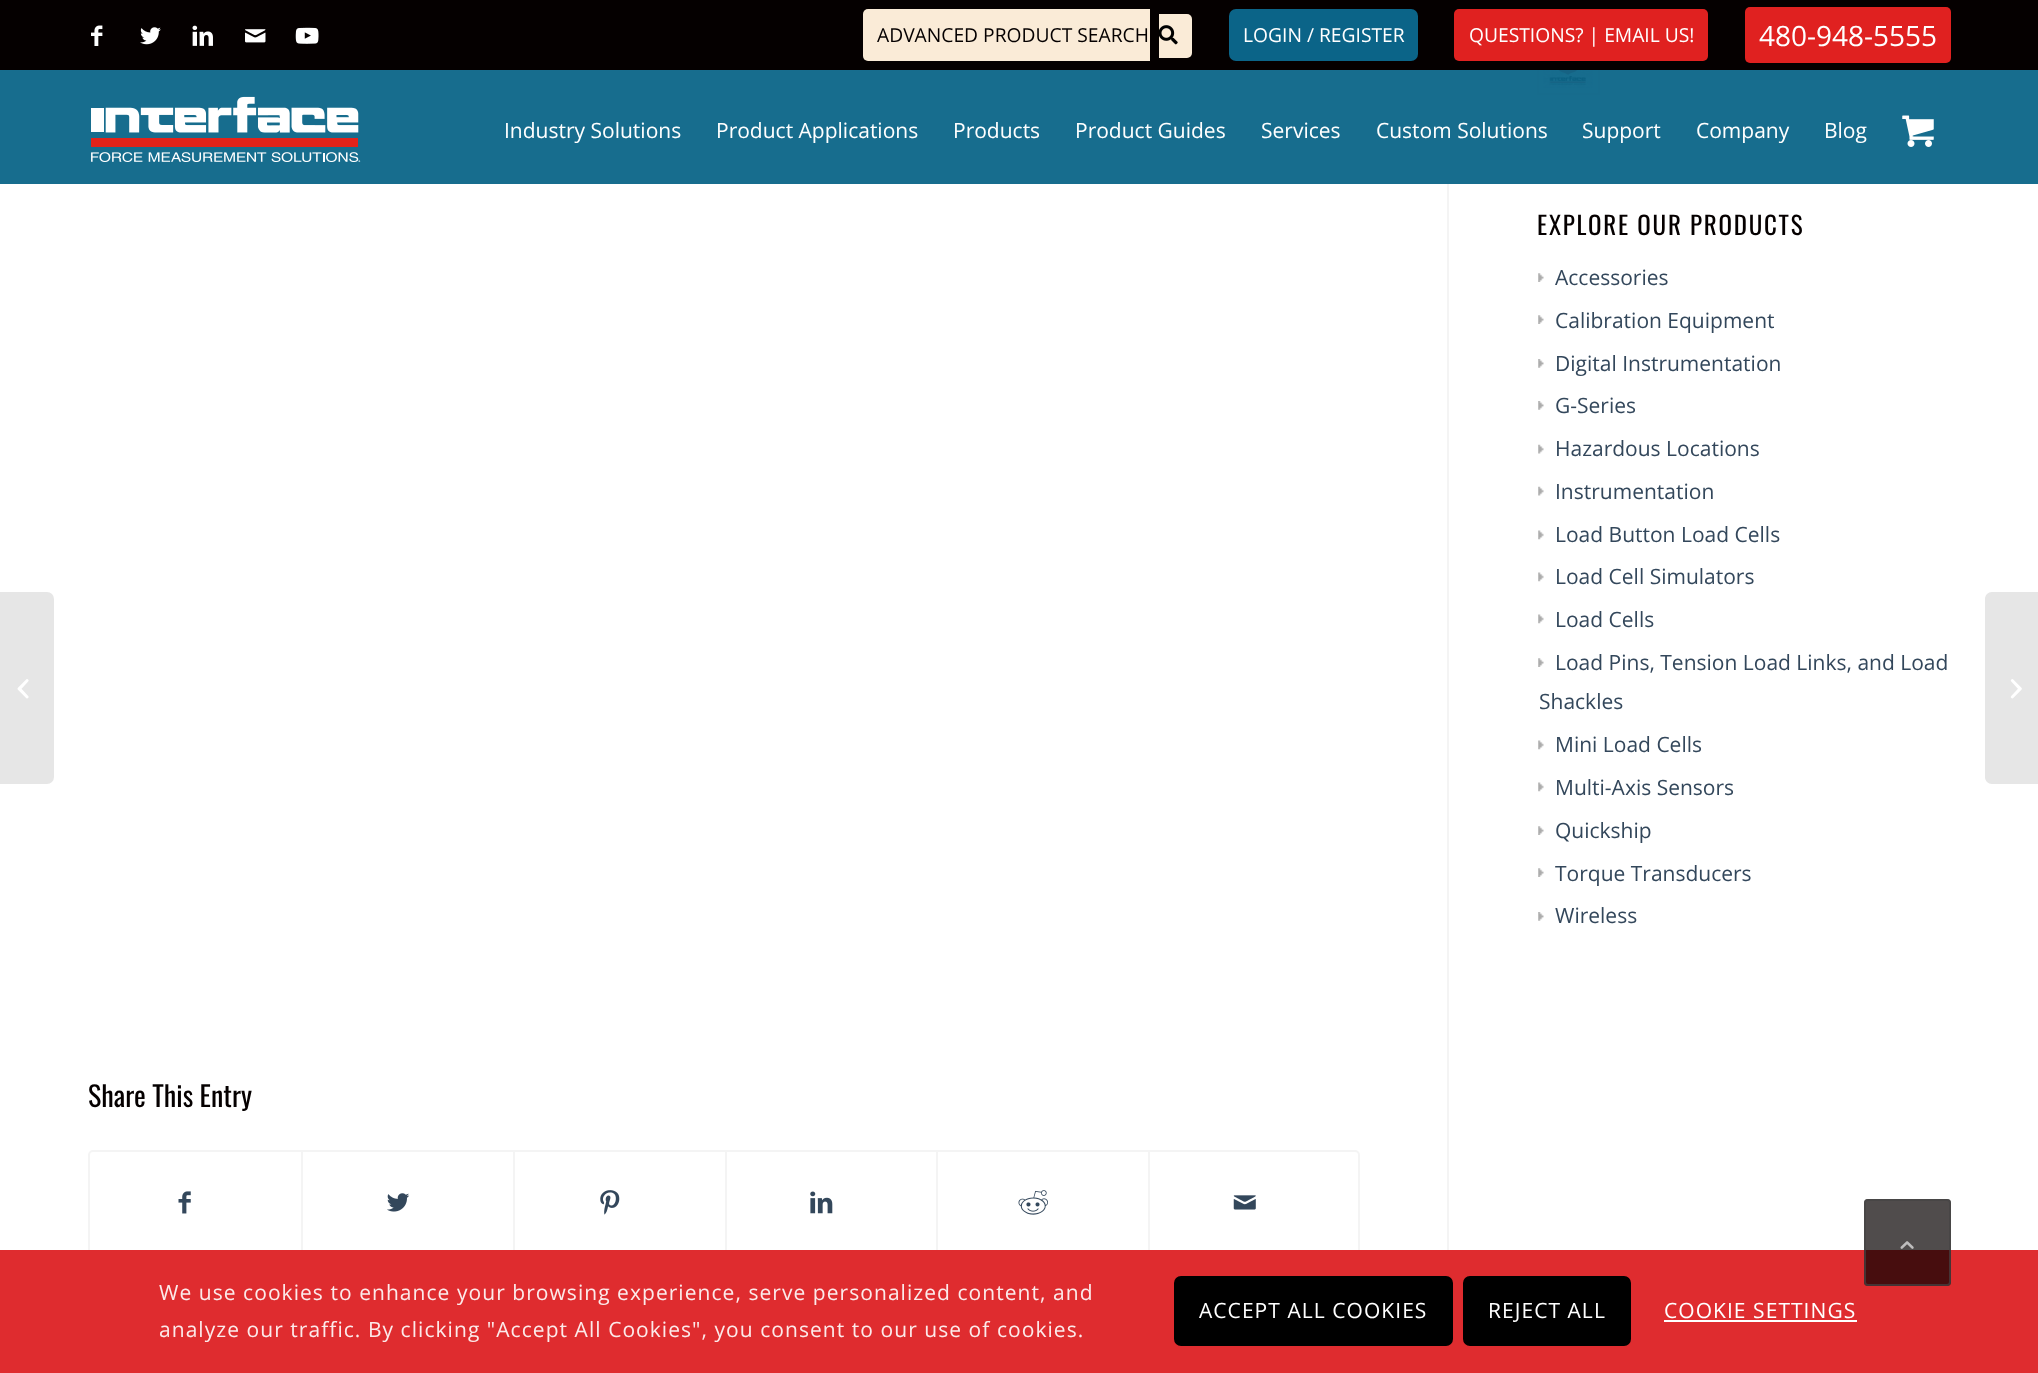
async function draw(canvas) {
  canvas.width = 2038
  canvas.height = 1373
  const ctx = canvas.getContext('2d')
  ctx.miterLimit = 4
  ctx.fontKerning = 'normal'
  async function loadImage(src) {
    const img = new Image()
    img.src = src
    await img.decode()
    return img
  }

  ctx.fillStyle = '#fff'
  ctx.fillRect(0, 0, 2038, 1373)
  ctx.fillStyle = '#176d8e'
  ctx.fillRect(0, 70, 2038, 114)
  ctx.strokeStyle = '#176c8d'
  ctx.lineWidth = 2
  ctx.strokeRect(1538, 33, 61, 61)
  ctx.fillStyle = '#050000'
  ctx.fillRect(0, 0, 2038, 70)
  ctx.drawImage(await loadImage('image0.png'), 91, 25, 12, 21)
  ctx.drawImage(await loadImage('image1.png'), 140, 27, 21, 18)
  ctx.drawImage(await loadImage('image2.png'), 192, 25, 21, 21)
  ctx.drawImage(await loadImage('image3.png'), 245, 29, 21, 14)
  ctx.drawImage(await loadImage('image4.png'), 295, 27, 24, 17)
  ctx.fillStyle = '#faebd7'
  ctx.beginPath()
  ctx.roundRect(863, 9, 287, 52, [5, 0, 0, 5])
  ctx.fill()
  ctx.beginPath()
  ctx.roundRect(1159, 14, 33, 44, [0, 5, 5, 0])
  ctx.fill()
  ctx.font = '19.25px Open Sans'
  ctx.fillStyle = '#050000'
  ctx.fillText('ADVANCED PRODUCT SEARCH', 877, 42)
  ctx.drawImage(await loadImage('image5.png'), 1159, 25, 19, 20)
  ctx.fillStyle = '#0b6488'
  ctx.beginPath()
  ctx.roundRect(1229, 9, 189, 52, 7)
  ctx.fill()
  ctx.fillStyle = '#fff'
  ctx.fillText('LOGIN / REGISTER', 1243, 42)
  ctx.fillStyle = '#e02120'
  ctx.beginPath()
  ctx.roundRect(1454, 9, 254, 52, 5)
  ctx.fill()
  ctx.fillStyle = '#fff'
  ctx.fillText('QUESTIONS? | EMAIL US!', 1469, 42)
  ctx.fillStyle = '#e02120'
  ctx.beginPath()
  ctx.roundRect(1745, 7, 206, 56, 5)
  ctx.fill()
  ctx.font = '28px Open Sans'
  ctx.fillStyle = '#fff'
  ctx.fillText('480-948-5555', 1759, 46)
  ctx.drawImage(await loadImage('image6.png'), 91, 96, 270, 66)
  ctx.font = '21px Open Sans'
  ctx.fillText('Industry Solutions', 504, 138)
  ctx.fillText('Product Applications', 716, 138)
  ctx.fillText('Products', 953, 138)
  ctx.fillText('Product Guides', 1075, 138)
  ctx.fillText('Services', 1261, 138)
  ctx.fillText('Custom Solutions', 1376, 138)
  ctx.fillText('Support', 1582, 138)
  ctx.fillText('Company', 1696, 138)
  ctx.fillText('Blog', 1824, 138)
  ctx.drawImage(await loadImage('image7.png'), 1902, 115, 32, 32)
  ctx.fillStyle = '#e6e6e6'
  ctx.beginPath()
  ctx.roundRect(0, 592, 54, 192, [0, 7, 7, 0])
  ctx.fill()
  ctx.drawImage(await loadImage('image8.png'), 17, 679, 12, 20)
  ctx.drawImage(await loadImage('image9.png'), 1543, 70, 50, 18)
  ctx.letterSpacing = '1.75px'
  ctx.font = '25px Oswald'
  ctx.fillStyle = '#050000'
  ctx.fillText('EXPLORE OUR PRODUCTS', 1537, 235)
  ctx.drawImage(await loadImage('image10.png'), 1538, 273, 6, 9)
  ctx.letterSpacing = '0px'
  ctx.font = '21px Open Sans'
  ctx.fillStyle = '#33475b'
  ctx.fillText('Accessories', 1555, 285)
  ctx.drawImage(await loadImage('image10.png'), 1538, 315, 6, 9)
  ctx.fillText('Calibration Equipment', 1555, 328)
  ctx.drawImage(await loadImage('image11.png'), 1538, 359, 6, 9)
  ctx.fillText('Digital Instrumentation', 1555, 371)
  ctx.drawImage(await loadImage('image11.png'), 1538, 401, 6, 9)
  ctx.fillText('G-Series', 1555, 413)
  ctx.drawImage(await loadImage('image12.png'), 1538, 444, 6, 10)
  ctx.fillText('Hazardous Locations', 1555, 456)
  ctx.drawImage(await loadImage('image12.png'), 1538, 486, 6, 10)
  ctx.fillText('Instrumentation', 1555, 499)
  ctx.drawImage(await loadImage('image13.png'), 1538, 530, 6, 10)
  ctx.fillText('Load Button Load Cells', 1555, 542)
  ctx.drawImage(await loadImage('image13.png'), 1538, 572, 6, 10)
  ctx.fillText('Load Cell Simulators', 1555, 584)
  ctx.drawImage(await loadImage('image13.png'), 1538, 614, 6, 10)
  ctx.fillText('Load Cells', 1555, 627)
  ctx.drawImage(await loadImage('image10.png'), 1538, 658, 6, 9)
  ctx.fillText('Load Pins, Tension Load Links, and Load', 1555, 670)
  ctx.fillText('Shackles', 1539, 709)
  ctx.drawImage(await loadImage('image13.png'), 1538, 740, 6, 10)
  ctx.fillText('Mini Load Cells', 1555, 752)
  ctx.drawImage(await loadImage('image13.png'), 1538, 782, 6, 10)
  ctx.fillText('Multi-Axis Sensors', 1555, 795)
  ctx.drawImage(await loadImage('image10.png'), 1538, 826, 6, 9)
  ctx.fillText('Quickship', 1555, 838)
  ctx.drawImage(await loadImage('image10.png'), 1538, 868, 6, 9)
  ctx.fillText('Torque Transducers', 1555, 881)
  ctx.drawImage(await loadImage('image11.png'), 1538, 912, 6, 9)
  ctx.fillText('Wireless', 1555, 923)
  ctx.fillStyle = '#f4f4f4'
  ctx.fillRect(1447, 184, 2, 1066)
  ctx.font = '28px Oswald'
  ctx.fillStyle = '#050000'
  ctx.fillText('Share This Entry', 88, 1107)
  ctx.beginPath()
  ctx.roundRect(89, 1151, 1270, 103, 4)
  ctx.strokeStyle = '#f4f4f4'
  ctx.stroke()
  ctx.drawImage(await loadImage('image14.png'), 178, 1191, 13, 23)
  ctx.fillStyle = '#f4f4f4'
  ctx.fillRect(301, 1152, 2, 101)
  ctx.drawImage(await loadImage('image15.png'), 387, 1193, 23, 19)
  ctx.fillRect(513, 1152, 2, 101)
  ctx.drawImage(await loadImage('image16.png'), 600, 1190, 20, 25)
  ctx.fillRect(725, 1152, 2, 101)
  ctx.drawImage(await loadImage('image17.png'), 810, 1191, 23, 23)
  ctx.fillRect(936, 1152, 2, 101)
  ctx.drawImage(await loadImage('image18.png'), 1018, 1190, 30, 25)
  ctx.fillRect(1148, 1152, 2, 101)
  ctx.drawImage(await loadImage('image19.png'), 1233, 1195, 23, 15)
  ctx.fillStyle = '#e6e6e6'
  ctx.beginPath()
  ctx.moveTo(1992, 592)
  ctx.lineTo(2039, 592)
  ctx.lineTo(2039, 784)
  ctx.lineTo(1992, 784)
  ctx.bezierCurveTo(1988, 784, 1985, 781, 1985, 777)
  ctx.lineTo(1985, 599)
  ctx.bezierCurveTo(1985, 595, 1988, 592, 1992, 592)
  ctx.closePath()
  ctx.fill()
  ctx.drawImage(await loadImage('image20.png'), 2010, 679, 12, 20)
  ctx.fillStyle = '#df2c2f'
  ctx.fillRect(0, 1250, 2038, 123)
  ctx.fillStyle = '#050000b3'
  ctx.beginPath()
  ctx.roundRect(1864, 1199, 87, 87, 4)
  ctx.fill()
  ctx.beginPath()
  ctx.roundRect(1865, 1200, 85, 85, 3)
  ctx.strokeStyle = '#444444b3'
  ctx.stroke()
  ctx.drawImage(await loadImage('image21.png'), 1900, 1241, 14, 8)
  ctx.letterSpacing = '1.05px'
  ctx.font = '21px Open Sans'
  ctx.fillStyle = '#fceaea'
  ctx.fillText('We use cookies to enhance your browsing experience, serve personalized content, and', 159, 1300)
  ctx.fillText('analyze our traffic. By clicking "Accept All Cookies", you consent to our use of cookies.', 159, 1337)
  ctx.fillStyle = '#000'
  ctx.beginPath()
  ctx.roundRect(1175, 1277, 277, 68, 6)
  ctx.fill()
  ctx.strokeStyle = '#000'
  ctx.stroke()
  ctx.fillStyle = '#fff'
  ctx.fillText('ACCEPT ALL COOKIES', 1199, 1318)
  ctx.fillStyle = '#000'
  ctx.beginPath()
  ctx.roundRect(1464, 1277, 166, 68, 6)
  ctx.fill()
  ctx.stroke()
  ctx.fillStyle = '#fff'
  ctx.fillText('REJECT ALL', 1488, 1318)
  ctx.fillText('COOKIE SETTINGS', 1664, 1318)
  ctx.fillRect(1664, 1320, 193, 2)
}

draw(document.querySelector('canvas'))
